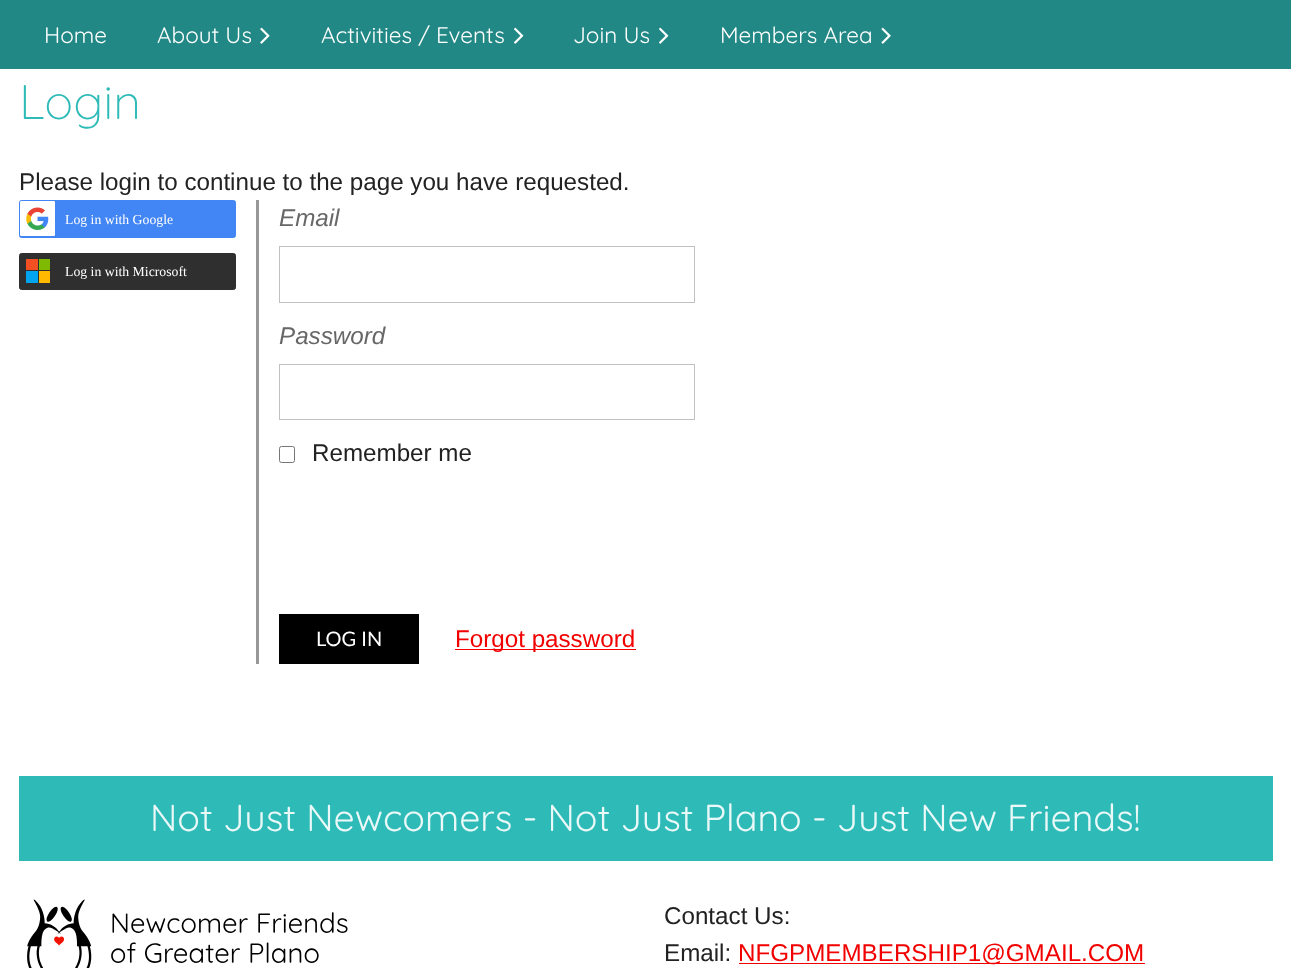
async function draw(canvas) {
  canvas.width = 1291
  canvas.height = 968
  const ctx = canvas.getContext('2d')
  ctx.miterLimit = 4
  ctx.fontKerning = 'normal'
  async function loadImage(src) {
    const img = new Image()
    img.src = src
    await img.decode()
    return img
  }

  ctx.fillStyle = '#fff'
  ctx.fillRect(0, 0, 1291, 968)
  ctx.fillStyle = '#228886'
  ctx.fillRect(0, 0, 1291, 69)
  ctx.font = '22.5px Quicksand'
  ctx.fillStyle = '#fff'
  ctx.fillText('Home', 44, 43)
  ctx.fillText('About Us', 157, 43)
  ctx.drawImage(await loadImage('image0.png'), 260, 27, 10, 17)
  ctx.fillText('Activities / Events', 321, 43)
  ctx.drawImage(await loadImage('image1.png'), 514, 27, 10, 17)
  ctx.fillText('Join Us', 573, 43)
  ctx.drawImage(await loadImage('image1.png'), 659, 27, 10, 17)
  ctx.fillText('Members Area', 720, 43)
  ctx.drawImage(await loadImage('image2.png'), 881, 27, 10, 17)
  ctx.font = '300 48.5px Quicksand'
  ctx.fillStyle = '#2ebbb8'
  ctx.fillText('Login', 19, 119)
  ctx.font = '24.2px Liberation Sans'
  ctx.fillStyle = '#222'
  ctx.fillText('Please login to continue to the page you have requested.', 19, 190)
  ctx.fillStyle = '#4285f4'
  ctx.beginPath()
  ctx.roundRect(19.5, 200.5, 216, 37, 2)
  ctx.fill()
  ctx.strokeStyle = '#4285f4'
  ctx.stroke()
  ctx.drawImage(await loadImage('image3.png'), 20, 201, 35, 35)
  ctx.font = '13.75px Liberation Serif'
  ctx.fillStyle = '#fff'
  ctx.fillText('Log in with Google', 65, 224)
  ctx.fillStyle = '#2f2f2f'
  ctx.beginPath()
  ctx.roundRect(19.5, 253.5, 216, 36, 2)
  ctx.fill()
  ctx.strokeStyle = '#2f2f2f'
  ctx.stroke()
  ctx.fillStyle = '#f25022'
  ctx.fillRect(26, 259, 12, 11)
  ctx.fillStyle = '#00a4ef'
  ctx.fillRect(26, 271, 12, 12)
  ctx.fillStyle = '#7fba00'
  ctx.fillRect(39, 259, 11, 11)
  ctx.fillStyle = '#ffb900'
  ctx.fillRect(39, 271, 11, 12)
  ctx.fillStyle = '#fff'
  ctx.fillText('Log in with Microsoft', 65, 276)
  ctx.fillStyle = '#979797'
  ctx.fillRect(256, 200, 3, 464)
  ctx.font = 'italic 24.2px Liberation Sans'
  ctx.fillStyle = '#676767'
  ctx.fillText('Email', 279, 226)
  ctx.strokeStyle = '#c1c1c1'
  ctx.strokeRect(279.5, 246.5, 415, 56)
  ctx.fillText('Password', 279, 344)
  ctx.strokeRect(279.5, 364.5, 415, 55)
  ctx.beginPath()
  ctx.roundRect(279.5, 446.5, 15, 16, 2)
  ctx.strokeStyle = '#767676'
  ctx.stroke()
  ctx.font = '24.2px Liberation Sans'
  ctx.fillStyle = '#222'
  ctx.fillText('Remember me', 312, 461)
  ctx.fillStyle = '#000'
  ctx.fillRect(279, 614, 140, 50)
  ctx.font = '20px Lato'
  ctx.fillStyle = '#fff'
  ctx.fillText('LOG IN', 316, 646)
  ctx.fillStyle = '#f20000'
  ctx.fillRect(455, 649, 181, 1)
  ctx.font = '24.2px Liberation Sans'
  ctx.fillText('Forgot password', 455, 647)
  ctx.fillStyle = '#2ebbb8'
  ctx.fillRect(19, 776, 1254, 85)
  ctx.font = '37.5px Quicksand'
  ctx.fillStyle = '#eaf8f8'
  ctx.fillText('Not Just Newcomers - Not Just Plano - Just New Friends!', 150, 831)
  ctx.drawImage(await loadImage('image4.png'), 27, 899, 321, 69)
  ctx.font = '24.2px Liberation Sans'
  ctx.fillStyle = '#222'
  ctx.fillText('Contact Us:', 664, 924)
  ctx.fillText('Email:', 664, 961)
  ctx.fillStyle = '#f20000'
  ctx.fillRect(739, 963, 406, 1)
  ctx.fillText('NFGPMEMBERSHIP1@GMAIL.COM', 738, 961)
}

draw(document.querySelector('canvas'))
